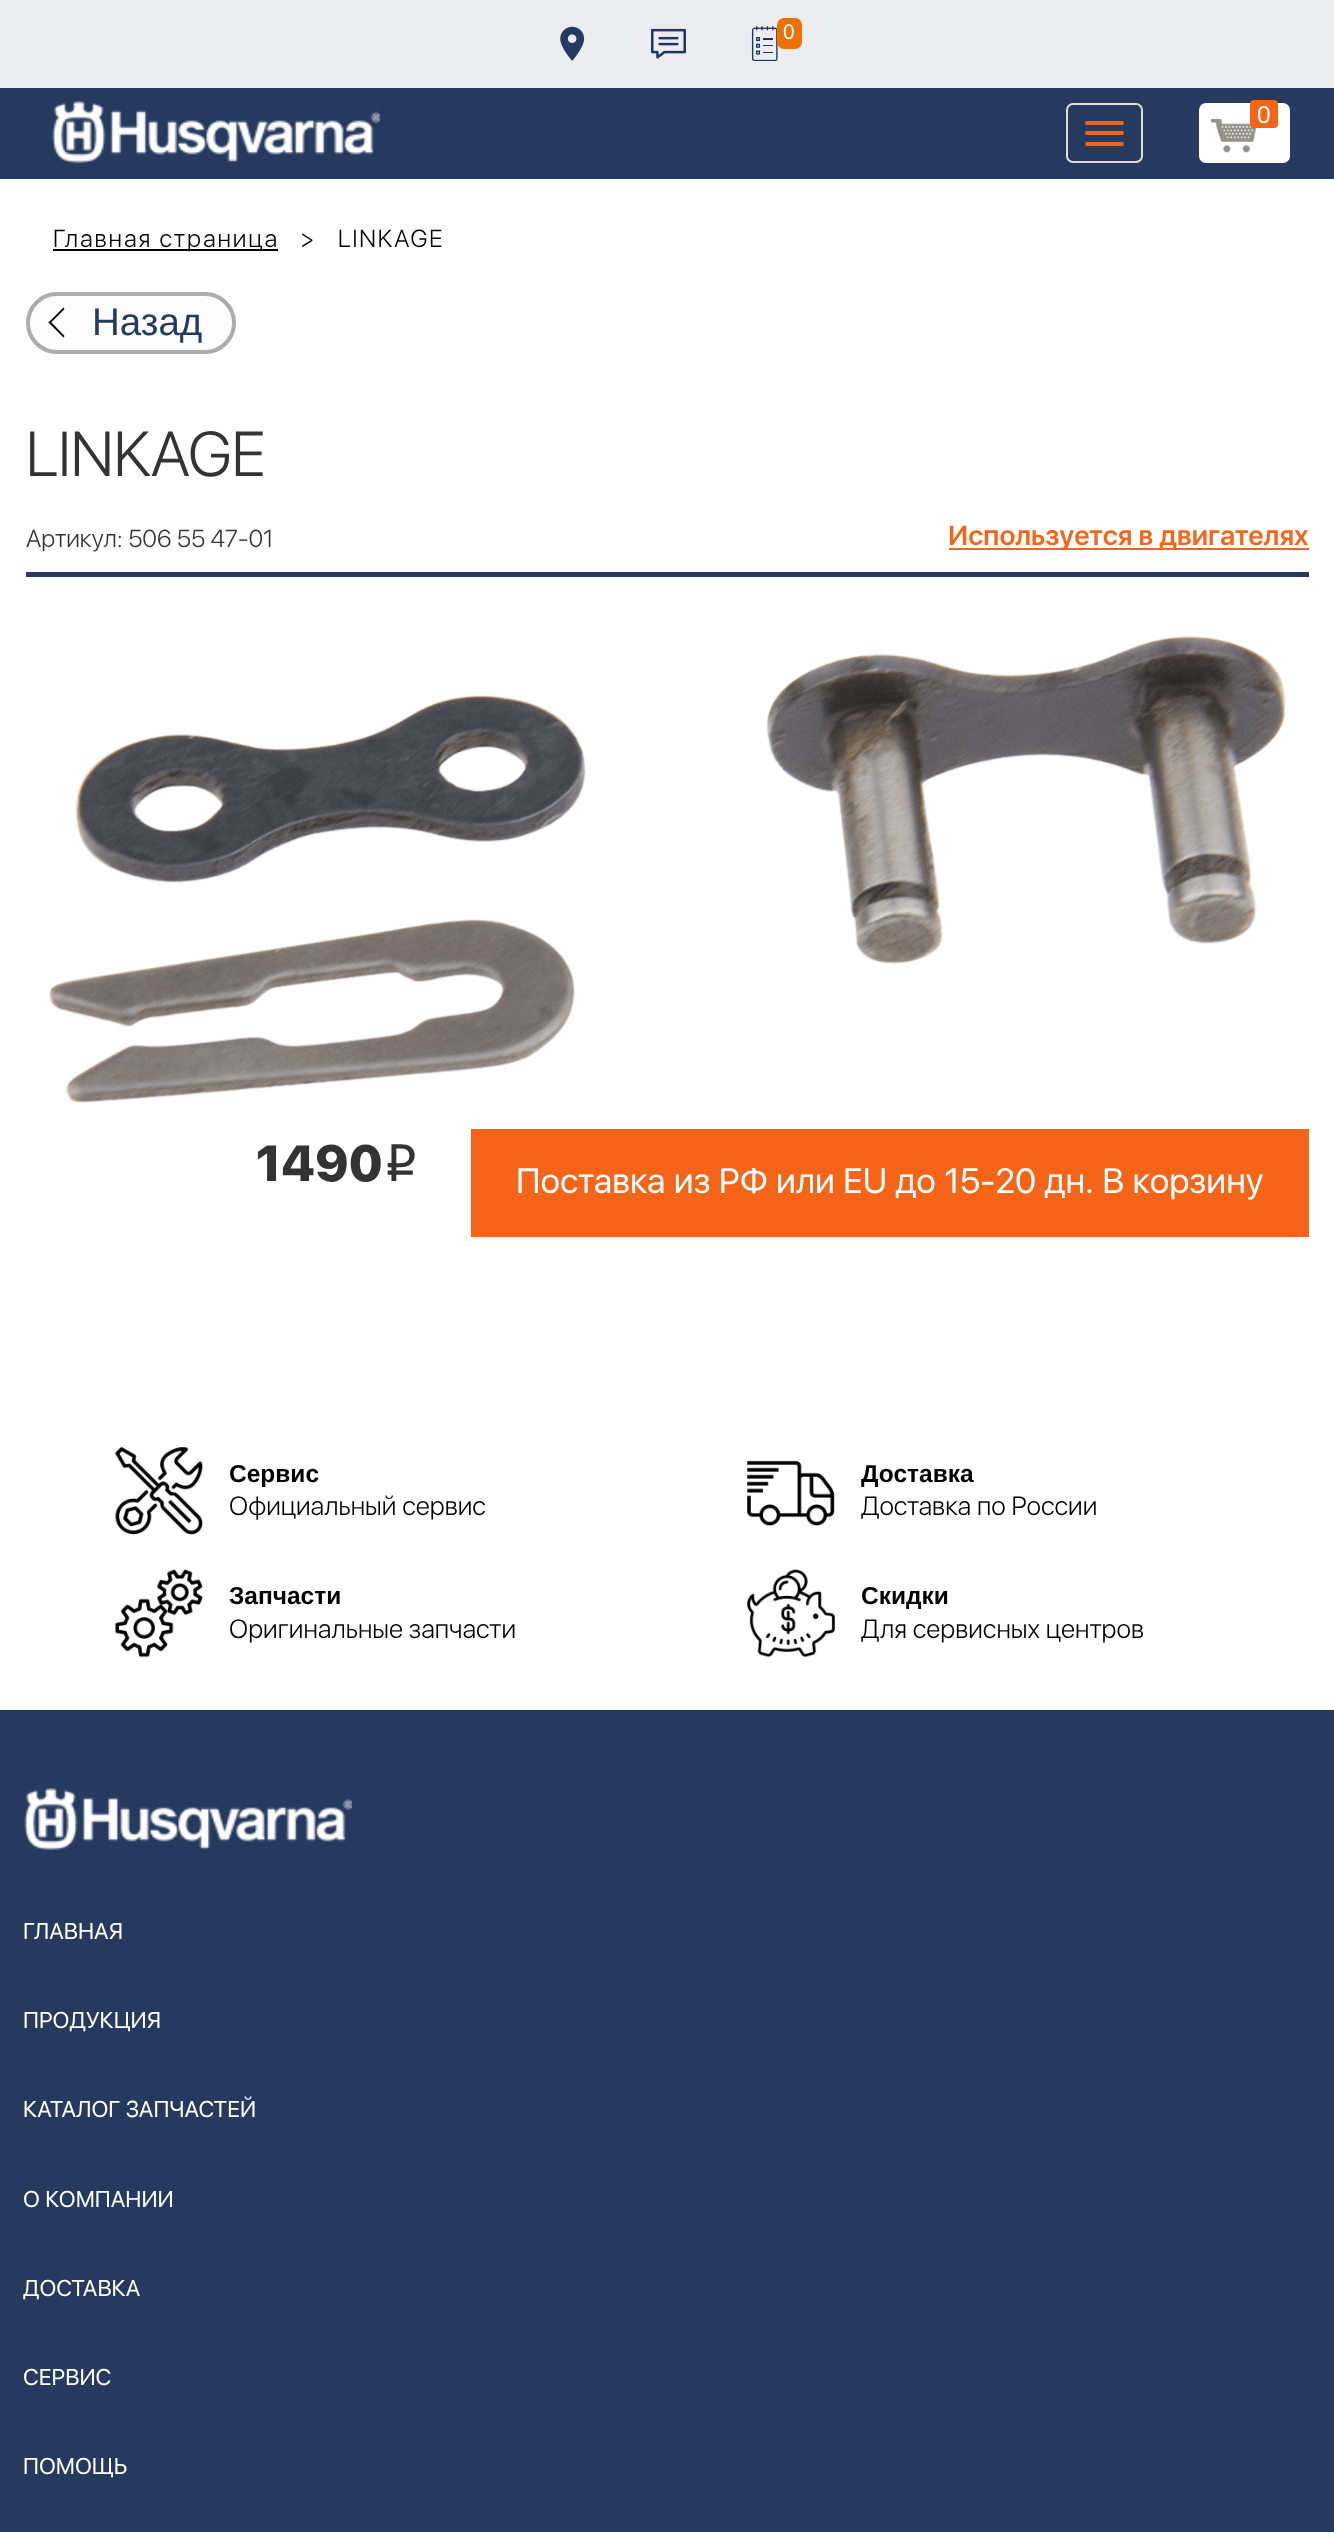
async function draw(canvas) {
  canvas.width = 1334
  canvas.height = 2532
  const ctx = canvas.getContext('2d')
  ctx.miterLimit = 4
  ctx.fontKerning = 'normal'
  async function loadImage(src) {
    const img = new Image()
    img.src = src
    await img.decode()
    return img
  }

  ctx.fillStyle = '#fff'
  ctx.fillRect(0, 0, 1334, 2532)
  ctx.fillStyle = '#eaecf0'
  ctx.fillRect(0, 0, 1334, 88)
  ctx.drawImage(await loadImage('image0.png'), 560, 26, 25, 35)
  ctx.drawImage(await loadImage('image1.png'), 651, 28, 35, 31)
  ctx.drawImage(await loadImage('image2.png'), 751, 26, 27, 35)
  ctx.fillStyle = '#ed7102'
  ctx.beginPath()
  ctx.roundRect(777, 18, 25, 31, 7)
  ctx.fill()
  ctx.font = '21px Liberation Sans'
  ctx.fillStyle = '#fff'
  ctx.fillText('0', 783, 39)
  ctx.fillStyle = '#263a5f'
  ctx.fillRect(0, 88, 1334, 91)
  ctx.drawImage(await loadImage('image3.png'), 52, 101, 329, 63)
  ctx.beginPath()
  ctx.roundRect(1067, 104, 75, 58, 6)
  ctx.strokeStyle = '#ddd'
  ctx.lineWidth = 2
  ctx.stroke()
  ctx.fillStyle = '#f4651a'
  ctx.beginPath()
  ctx.roundRect(1085, 121, 39, 4, 2)
  ctx.fill()
  ctx.beginPath()
  ctx.roundRect(1085, 131, 39, 4, 2)
  ctx.fill()
  ctx.beginPath()
  ctx.roundRect(1085, 142, 39, 4, 2)
  ctx.fill()
  ctx.fillStyle = '#fff'
  ctx.beginPath()
  ctx.roundRect(1199, 103, 91, 60, 7)
  ctx.fill()
  ctx.drawImage(await loadImage('image4.png'), 1211, 119, 46, 34)
  ctx.fillStyle = '#f4651a'
  ctx.beginPath()
  ctx.roundRect(1250, 100, 28, 28, 4)
  ctx.fill()
  ctx.font = '24.5px Liberation Sans'
  ctx.fillStyle = '#fff'
  ctx.fillText('0', 1257, 123)
  ctx.fillStyle = '#000'
  ctx.fillRect(53, 249, 225, 2)
  ctx.letterSpacing = '1.9px'
  ctx.font = '300 24.5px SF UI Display'
  ctx.fillText('Главная страница', 53, 247)
  ctx.fillText('>', 300, 247)
  ctx.fillText('LINKAGE', 338, 247)
  ctx.fillStyle = '#fcfcfc'
  ctx.beginPath()
  ctx.roundRect(28, 294, 206, 58, 29)
  ctx.fill()
  ctx.strokeStyle = '#acacac'
  ctx.lineWidth = 4
  ctx.stroke()
  ctx.fillStyle = '#000'
  ctx.beginPath()
  ctx.moveTo(48.5, 322.5)
  ctx.lineTo(63.5, 307.5)
  ctx.lineTo(64.5, 309)
  ctx.lineTo(50, 323.5)
  ctx.closePath()
  ctx.fill()
  ctx.beginPath()
  ctx.moveTo(48.5, 322.5)
  ctx.lineTo(50, 321)
  ctx.lineTo(64.5, 336)
  ctx.lineTo(63.5, 337.5)
  ctx.closePath()
  ctx.fill()
  ctx.letterSpacing = '0px'
  ctx.font = '38.5px Liberation Sans'
  ctx.fillStyle = '#263a5f'
  ctx.fillText('Назад', 92, 335)
  ctx.font = '300 63px SF UI Display'
  ctx.fillStyle = '#333'
  ctx.fillText('LINKAGE', 26, 476)
  ctx.font = '300 24.5px SF UI Display'
  ctx.fillText('Артикул: 506 55 47-01', 26, 547)
  ctx.fillStyle = '#f4651a'
  ctx.fillRect(949, 548, 360, 2)
  ctx.font = '600 28px SF UI Display'
  ctx.fillText('Используется в двигателях', 948, 545)
  ctx.fillStyle = '#263a5f'
  ctx.fillRect(26, 572, 1283, 5)
  ctx.drawImage(await loadImage('image5.png'), 49, 636, 1237, 467)
  ctx.font = '900 52.5px SF UI Display'
  ctx.fillStyle = '#333'
  ctx.fillText('1490', 256, 1181)
  ctx.font = '52.5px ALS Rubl'
  ctx.fillText('i', 383, 1181)
  ctx.fillStyle = '#f4651a'
  ctx.fillRect(471, 1129, 838, 108)
  ctx.font = '35px SF UI Display'
  ctx.fillStyle = '#fff'
  ctx.fillText('Поставка из РФ или EU до 15-20 дн. В корзину', 516, 1193)
  ctx.drawImage(await loadImage('image6.png'), 115, 1447, 88, 88)
  ctx.font = 'bold 24.5px Liberation Sans'
  ctx.fillStyle = '#000'
  ctx.fillText('Сервис', 229, 1482)
  ctx.font = '300 26.25px SF UI Display'
  ctx.fillText('Официальный сервис', 229, 1515)
  ctx.drawImage(await loadImage('image7.png'), 747, 1460, 88, 66)
  ctx.font = 'bold 24.5px Liberation Sans'
  ctx.fillText('Доставка', 861, 1482)
  ctx.font = '300 26.25px SF UI Display'
  ctx.fillText('Доставка по России', 861, 1515)
  ctx.drawImage(await loadImage('image8.png'), 115, 1569, 88, 89)
  ctx.font = 'bold 24.5px Liberation Sans'
  ctx.fillText('Запчасти', 229, 1604)
  ctx.font = '300 26.25px SF UI Display'
  ctx.fillText('Оригинальные запчасти', 229, 1638)
  ctx.drawImage(await loadImage('image9.png'), 747, 1569, 88, 89)
  ctx.font = 'bold 24.5px Liberation Sans'
  ctx.fillText('Скидки', 861, 1604)
  ctx.font = '300 26.25px SF UI Display'
  ctx.fillText('Для сервисных центров', 861, 1638)
  ctx.fillStyle = '#263a5f'
  ctx.fillRect(0, 1710, 1334, 822)
  ctx.drawImage(await loadImage('image10.png'), 24, 1788, 328, 62)
  ctx.font = '22.75px SF UI Display'
  ctx.fillStyle = '#fff'
  ctx.fillText('ГЛАВНАЯ', 23, 1939)
  ctx.fillText('ПРОДУКЦИЯ', 23, 2028)
  ctx.fillText('КАТАЛОГ ЗАПЧАСТЕЙ', 23, 2117)
  ctx.fillText('О КОМПАНИИ', 23, 2207)
  ctx.fillText('ДОСТАВКА', 23, 2296)
  ctx.fillText('СЕРВИС', 23, 2385)
  ctx.fillText('ПОМОЩЬ', 23, 2474)
}

draw(document.querySelector('canvas'))
